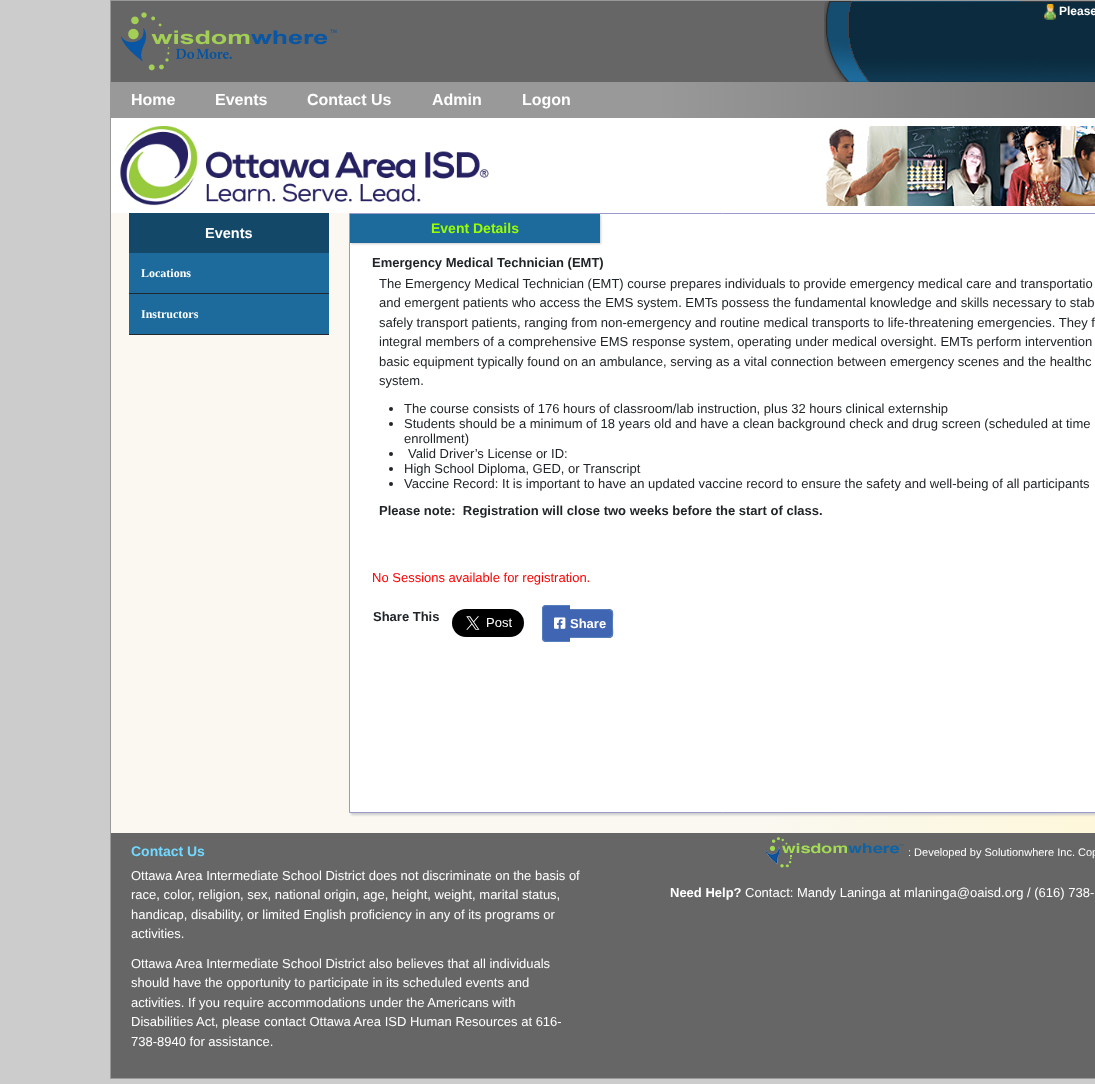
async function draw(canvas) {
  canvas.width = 1095
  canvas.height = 1084
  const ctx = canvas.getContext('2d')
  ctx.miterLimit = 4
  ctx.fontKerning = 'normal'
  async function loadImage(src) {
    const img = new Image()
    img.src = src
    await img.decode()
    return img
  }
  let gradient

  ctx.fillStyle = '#ccc'
  ctx.fillRect(0, 0, 1095, 1084)
  ctx.fillStyle = '#999'
  ctx.fillRect(110, 0, 985, 1)
  ctx.fillRect(110, 1078, 985, 1)
  ctx.fillRect(110, 0, 1, 1079)
  ctx.fillStyle = '#666'
  ctx.fillRect(111, 1, 713, 81)
  ctx.drawImage(await loadImage('image0.png'), 121, 12, 216, 59)
  ctx.drawImage(await loadImage('image1.png'), 824, 1, 271, 81)
  ctx.drawImage(await loadImage('image2.png'), 1044, 4, 12, 16)
  ctx.font = 'bold 12px Liberation Sans'
  ctx.fillStyle = '#fff'
  ctx.fillText('Please', 1059, 15)
  gradient = ctx.createLinearGradient(111, 100, 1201, 100)
  gradient.addColorStop(0, '#999')
  gradient.addColorStop(0.5, '#999')
  gradient.addColorStop(1, '#6c6c6c')
  ctx.fillStyle = gradient
  ctx.fillRect(111, 82, 984, 36)
  ctx.font = 'bold 16px Liberation Sans'
  ctx.fillStyle = '#fff'
  ctx.fillText('Home', 131, 105)
  ctx.fillText('Events', 215, 105)
  ctx.fillText('Contact Us', 307, 105)
  ctx.fillText('Admin', 432, 105)
  ctx.fillText('Logon', 522, 105)
  ctx.fillRect(111, 118, 984, 95)
  ctx.drawImage(await loadImage('image3.png'), 120, 126, 369, 80)
  ctx.drawImage(await loadImage('image4.png'), 822, 126, 273, 80)
  gradient = ctx.createLinearGradient(111, 523, 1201, 523)
  gradient.addColorStop(0, '#faf8f0')
  gradient.addColorStop(0.6, '#faf8f0')
  gradient.addColorStop(1, '#fff7d4')
  ctx.fillStyle = gradient
  ctx.fillRect(111, 213, 984, 620)
  ctx.fillStyle = '#134869'
  ctx.fillRect(129, 213, 200, 40)
  ctx.font = 'bold 14.5px Liberation Sans'
  ctx.fillStyle = '#fff'
  ctx.fillText('Events', 205, 238)
  ctx.fillStyle = '#1c6b9c'
  ctx.fillRect(129, 253, 200, 81)
  ctx.fillStyle = '#23282e'
  ctx.fillRect(129, 293, 200, 1)
  ctx.font = 'bold 12px Liberation Serif'
  ctx.fillStyle = '#fff'
  ctx.fillText('Locations', 141, 277)
  ctx.fillStyle = '#23282e'
  ctx.fillRect(129, 334, 200, 1)
  ctx.fillStyle = '#fff'
  ctx.fillText('Instructors', 141, 318)
  ctx.fillStyle = '#ccc'
  ctx.filter = 'blur(1px)'
  ctx.beginPath()
  ctx.rect(351, 215, 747, 600)
  ctx.fill()
  ctx.filter = 'none'
  ctx.fillStyle = '#fff'
  ctx.beginPath()
  ctx.rect(349.5, 213.5, 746, 599)
  ctx.fill()
  ctx.strokeStyle = '#99c'
  ctx.stroke()
  ctx.fillStyle = '#ccc'
  ctx.filter = 'blur(1px)'
  ctx.beginPath()
  ctx.rect(351, 215, 250, 29)
  ctx.fill()
  ctx.filter = 'none'
  ctx.fillStyle = '#1c6b9c'
  ctx.fillRect(350, 214, 250, 29)
  ctx.font = 'bold 14px Liberation Sans'
  ctx.fillStyle = '#9f0'
  ctx.fillText('Event Details', 431, 233)
  ctx.font = 'bold 13px Liberation Sans'
  ctx.fillStyle = '#212529'
  ctx.fillText('Emergency Medical Technician (EMT)', 372, 267)
  ctx.font = '13px Liberation Sans'
  ctx.fillText('The Emergency Medical Technician (EMT) course prepares individuals to provide emergency medical care and transportatio', 379, 288)
  ctx.fillText('and emergent patients who access the EMS system. EMTs possess the fundamental knowledge and skills necessary to stab', 379, 307)
  ctx.fillText('safely transport patients, ranging from non-emergency and routine medical transports to life-threatening emergencies. They f', 379, 327)
  ctx.fillText('integral members of a comprehensive EMS response system, operating under medical oversight. EMTs perform intervention', 379, 346)
  ctx.fillText('basic equipment typically found on an ambulance, serving as a vital connection between emergency scenes and the healthc', 379, 366)
  ctx.fillText('system.', 379, 385)
  ctx.beginPath()
  ctx.arc(391, 409, 2, 0, 2 * Math.PI)
  ctx.fill()
  ctx.fillText('The course consists of 176 hours of classroom/lab instruction, plus 32 hours clinical externship', 404, 413)
  ctx.beginPath()
  ctx.arc(391, 424, 2, 0, 2 * Math.PI)
  ctx.fill()
  ctx.fillText('Students should be a minimum of 18 years old and have a clean background check and drug screen (scheduled at time', 404, 428)
  ctx.fillText('enrollment)', 404, 443)
  ctx.beginPath()
  ctx.arc(391, 454, 2, 0, 2 * Math.PI)
  ctx.fill()
  ctx.fillText('Valid Driver’s License or ID:', 408, 458)
  ctx.beginPath()
  ctx.arc(391, 469, 2, 0, 2 * Math.PI)
  ctx.fill()
  ctx.fillText('High School Diploma, GED, or Transcript', 404, 473)
  ctx.beginPath()
  ctx.arc(391, 484, 2, 0, 2 * Math.PI)
  ctx.fill()
  ctx.fillText('Vaccine Record: It is important to have an updated vaccine record to ensure the safety and well-being of all participants', 404, 488)
  ctx.font = 'bold 13px Liberation Sans'
  ctx.fillText('Please note:  Registration will close two weeks before the start of class.', 379, 515)
  ctx.font = '13px Liberation Sans'
  ctx.fillStyle = '#f00'
  ctx.fillText('No Sessions available for registration.', 372, 582)
  ctx.font = 'bold 13px Liberation Sans'
  ctx.fillStyle = '#212529'
  ctx.fillText('Share This', 373, 621)
  ctx.drawImage(await loadImage('image5.png'), 452, 609, 72, 28)
  ctx.fillStyle = '#4065b3'
  ctx.beginPath()
  ctx.roundRect(542, 605, 28, 37, [4, 0, 0, 4])
  ctx.fill()
  ctx.fillStyle = '#577fbc'
  ctx.beginPath()
  ctx.moveTo(546, 605)
  ctx.lineTo(570, 605)
  ctx.lineTo(570, 642)
  ctx.lineTo(546, 642)
  ctx.bezierCurveTo(544, 642, 542, 640, 542, 638)
  ctx.lineTo(542, 609)
  ctx.bezierCurveTo(542, 607, 544, 605, 546, 605)
  ctx.closePath()
  ctx.moveTo(546, 606)
  ctx.lineTo(570, 606)
  ctx.lineTo(570, 641)
  ctx.lineTo(546, 641)
  ctx.bezierCurveTo(544.5, 641, 543, 639.5, 543, 638)
  ctx.lineTo(543, 609)
  ctx.bezierCurveTo(543, 607.5, 544.5, 606, 546, 606)
  ctx.closePath()
  ctx.fill('evenodd')
  ctx.fillStyle = '#4065b3'
  ctx.beginPath()
  ctx.roundRect(570, 609, 43, 29, [0, 4, 4, 0])
  ctx.fill()
  ctx.fillStyle = '#577fbc'
  ctx.beginPath()
  ctx.moveTo(570, 609)
  ctx.lineTo(602, 609)
  ctx.bezierCurveTo(616, 609, 613, 610, 613, 624)
  ctx.bezierCurveTo(613, 637, 616, 638, 602, 638)
  ctx.lineTo(570, 638)
  ctx.closePath()
  ctx.moveTo(570, 610)
  ctx.lineTo(602, 610)
  ctx.bezierCurveTo(615, 610, 612, 611, 612, 624)
  ctx.bezierCurveTo(612, 636, 615, 637, 602, 637)
  ctx.lineTo(570, 637)
  ctx.closePath()
  ctx.fill('evenodd')
  ctx.drawImage(await loadImage('image6.png'), 554, 617, 12, 12)
  ctx.fillStyle = '#fff'
  ctx.fillText('Share', 570, 628)
  ctx.fillStyle = '#666'
  ctx.fillRect(111, 833, 984, 245)
  ctx.font = 'bold 14px Liberation Sans'
  ctx.fillStyle = '#71d9ff'
  ctx.fillText('Contact Us', 131, 856)
  ctx.font = '13px Liberation Sans'
  ctx.fillStyle = '#fff'
  ctx.fillText('Ottawa Area Intermediate School District does not discriminate on the basis of', 131, 880)
  ctx.fillText('race, color, religion, sex, national origin, age, height, weight, marital status,', 131, 899)
  ctx.fillText('handicap, disability, or limited English proficiency in any of its programs or', 131, 919)
  ctx.fillText('activities.', 131, 938)
  ctx.fillText('Ottawa Area Intermediate School District also believes that all individuals', 131, 968)
  ctx.fillText('should have the opportunity to participate in its scheduled events and', 131, 987)
  ctx.fillText('activities. If you require accommodations under the Americans with', 131, 1007)
  ctx.fillText('Disabilities Act, please contact Ottawa Area ISD Human Resources at 616-', 131, 1026)
  ctx.fillText('738-8940 for assistance.', 131, 1046)
  ctx.drawImage(await loadImage('image7.png'), 766, 837, 138, 31)
  ctx.font = '11px Liberation Sans'
  ctx.fillText(': Developed by Solutionwhere Inc. Cop', 908, 856)
  ctx.font = 'bold 13px Liberation Sans'
  ctx.fillText('Need Help?', 670, 897)
  ctx.font = '13px Liberation Sans'
  ctx.fillText('Contact: Mandy Laninga at mlaninga@oaisd.org / (616) 738-', 745, 897)
}

draw(document.querySelector('canvas'))
